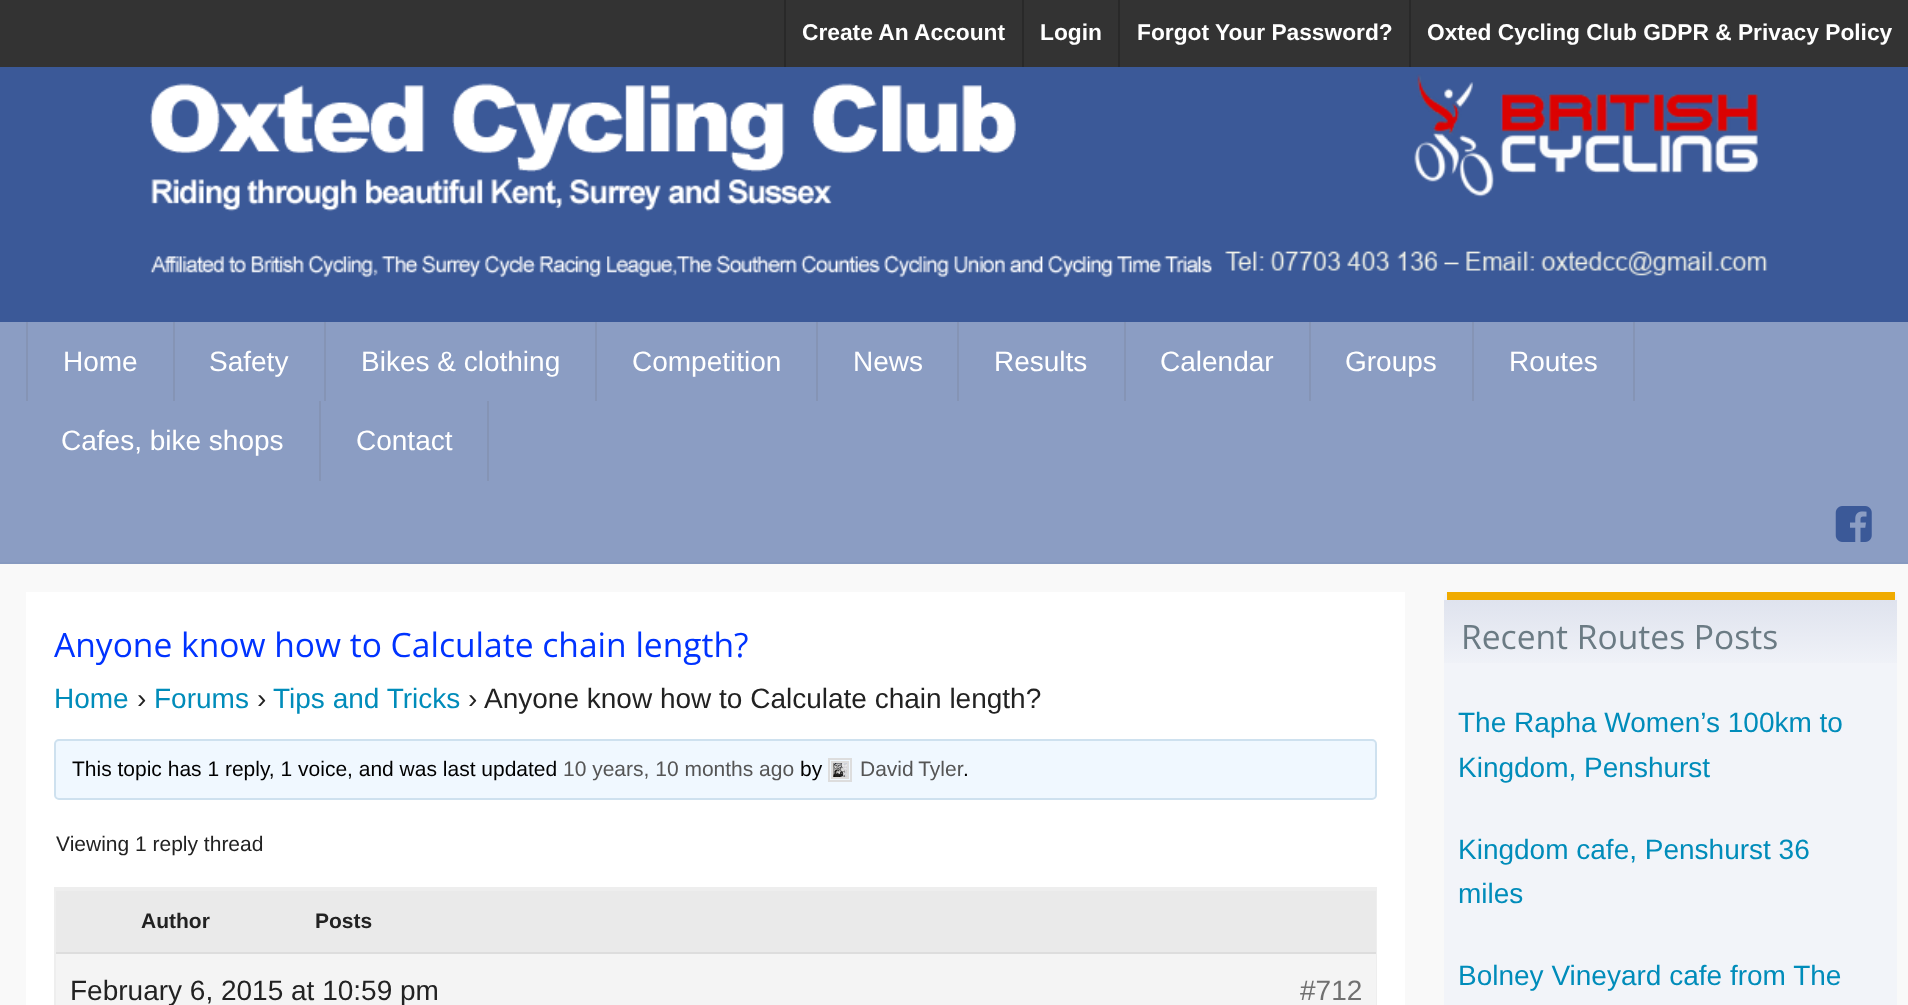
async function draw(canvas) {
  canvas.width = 1908
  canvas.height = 1005
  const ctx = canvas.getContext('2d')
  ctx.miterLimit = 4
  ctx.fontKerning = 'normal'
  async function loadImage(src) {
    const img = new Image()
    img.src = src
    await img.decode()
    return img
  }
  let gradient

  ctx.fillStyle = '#f9f9f9'
  ctx.fillRect(0, 0, 1908, 1005)
  ctx.fillStyle = '#3b5998'
  ctx.fillRect(0, 67, 1908, 255)
  ctx.fillStyle = '#333'
  ctx.fillRect(0, 0, 1908, 67)
  ctx.fillStyle = '#292929'
  ctx.fillRect(784, 0, 2, 67)
  ctx.font = 'bold 22.75px Liberation Sans'
  ctx.fillStyle = '#fff'
  ctx.fillText('Create An Account', 802, 40)
  ctx.fillStyle = '#292929'
  ctx.fillRect(1022, 0, 2, 67)
  ctx.fillStyle = '#fff'
  ctx.fillText('Login', 1040, 40)
  ctx.fillStyle = '#292929'
  ctx.fillRect(1118, 0, 2, 67)
  ctx.fillStyle = '#fff'
  ctx.fillText('Forgot Your Password?', 1137, 40)
  ctx.fillStyle = '#292929'
  ctx.fillRect(1409, 0, 2, 67)
  ctx.fillStyle = '#fff'
  ctx.fillText('Oxted Cycling Club GDPR & Privacy Policy', 1427, 40)
  ctx.drawImage(await loadImage('image0.png'), 150, 74, 1618, 204)
  ctx.fillStyle = '#8b9dc3'
  ctx.fillRect(0, 322, 1908, 240)
  ctx.fillStyle = '#879ac0'
  ctx.fillRect(0, 562, 1908, 2)
  ctx.fillStyle = '#8594b5'
  ctx.fillRect(26, 322, 2, 79)
  ctx.fillRect(173, 322, 2, 79)
  ctx.font = '28px Liberation Sans'
  ctx.fillStyle = '#fff'
  ctx.fillText('Home', 63, 371)
  ctx.fillStyle = '#8594b5'
  ctx.fillRect(324, 322, 2, 79)
  ctx.fillStyle = '#fff'
  ctx.fillText('Safety', 209, 371)
  ctx.fillStyle = '#8594b5'
  ctx.fillRect(595, 322, 2, 79)
  ctx.fillStyle = '#fff'
  ctx.fillText('Bikes & clothing', 361, 371)
  ctx.fillStyle = '#8594b5'
  ctx.fillRect(816, 322, 2, 79)
  ctx.fillStyle = '#fff'
  ctx.fillText('Competition', 632, 371)
  ctx.fillStyle = '#8594b5'
  ctx.fillRect(957, 322, 2, 79)
  ctx.fillStyle = '#fff'
  ctx.fillText('News', 853, 371)
  ctx.fillStyle = '#8594b5'
  ctx.fillRect(1124, 322, 2, 79)
  ctx.fillStyle = '#fff'
  ctx.fillText('Results', 994, 371)
  ctx.fillStyle = '#8594b5'
  ctx.fillRect(1309, 322, 2, 79)
  ctx.fillStyle = '#fff'
  ctx.fillText('Calendar', 1160, 371)
  ctx.fillStyle = '#8594b5'
  ctx.fillRect(1472, 322, 2, 79)
  ctx.fillStyle = '#fff'
  ctx.fillText('Groups', 1345, 371)
  ctx.fillStyle = '#8594b5'
  ctx.fillRect(1633, 322, 2, 79)
  ctx.fillStyle = '#fff'
  ctx.fillText('Routes', 1509, 371)
  ctx.fillStyle = '#8594b5'
  ctx.fillRect(319, 401, 2, 80)
  ctx.fillStyle = '#fff'
  ctx.fillText('Cafes, bike shops', 61, 450)
  ctx.fillStyle = '#8594b5'
  ctx.fillRect(487, 401, 2, 80)
  ctx.fillStyle = '#fff'
  ctx.fillText('Contact', 356, 450)
  ctx.drawImage(await loadImage('image1.png'), 1835, 506, 37, 36)
  ctx.fillRect(26, 592, 1379, 413)
  ctx.font = '33.6px Open Sans'
  ctx.fillStyle = '#03f'
  ctx.fillText('Anyone know how to Calculate chain length?', 54, 657)
  ctx.font = '28px Liberation Sans'
  ctx.fillStyle = '#008cba'
  ctx.fillText('Home', 54, 708)
  ctx.fillStyle = '#222'
  ctx.fillText('›', 137, 708)
  ctx.fillStyle = '#008cba'
  ctx.fillText('Forums', 154, 708)
  ctx.fillStyle = '#222'
  ctx.fillText('›', 257, 708)
  ctx.fillStyle = '#008cba'
  ctx.fillText('Tips and Tricks', 273, 708)
  ctx.fillStyle = '#222'
  ctx.fillText('›', 468, 708)
  ctx.fillText('Anyone know how to Calculate chain length?', 484, 708)
  ctx.fillStyle = '#f0f8ff'
  ctx.beginPath()
  ctx.roundRect(55, 740, 1321, 59, 4)
  ctx.fill()
  ctx.strokeStyle = '#cee1ef'
  ctx.lineWidth = 2
  ctx.stroke()
  ctx.font = '21px Liberation Sans'
  ctx.fillStyle = '#000'
  ctx.fillText('This topic has 1 reply, 1 voice, and was last updated', 72, 776)
  ctx.fillStyle = '#555'
  ctx.fillText('10 years, 10 months ago', 563, 776)
  ctx.fillStyle = '#000'
  ctx.fillText('by', 800, 776)
  ctx.strokeStyle = '#ddd'
  ctx.strokeRect(829, 759, 22, 22)
  ctx.strokeRect(832, 762, 16, 16)
  ctx.drawImage(await loadImage('image2.png'), 833, 763, 14, 14)
  ctx.wordSpacing = '-1px'
  ctx.fillStyle = '#555'
  ctx.fillText('David Tyler', 860, 776)
  ctx.wordSpacing = '0px'
  ctx.fillStyle = '#000'
  ctx.fillText('.', 963, 776)
  ctx.fillStyle = '#222'
  ctx.fillText('Viewing 1 reply thread', 56, 851)
  ctx.strokeStyle = '#eee'
  ctx.strokeRect(55, 888, 1321, 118)
  ctx.fillStyle = '#eaeaea'
  ctx.fillRect(56, 891, 1320, 61)
  ctx.fillStyle = '#eee'
  ctx.fillRect(56, 889, 1320, 2)
  ctx.font = 'bold 21px Liberation Sans'
  ctx.fillStyle = '#222'
  ctx.fillText('Author', 141, 928)
  ctx.fillText('Posts', 315, 928)
  ctx.fillStyle = '#f4f4f4'
  ctx.fillRect(56, 954, 1320, 51)
  ctx.fillStyle = '#ddd'
  ctx.fillRect(56, 952, 1320, 2)
  ctx.font = '28px Liberation Sans'
  ctx.fillStyle = '#222'
  ctx.fillText('February 6, 2015 at 10:59 pm', 70, 1000)
  ctx.fillStyle = '#707070'
  ctx.fillText('#712', 1300, 1000)
  ctx.fillStyle = '#f2f4f9'
  ctx.beginPath()
  ctx.roundRect(1444, 592, 453, 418, 5)
  ctx.fill()
  ctx.fillStyle = '#f0ab00'
  ctx.fillRect(1447, 592, 448, 8)
  gradient = ctx.createLinearGradient(1670, 600, 1670, 681)
  gradient.addColorStop(0, '#dfe3ee')
  gradient.addColorStop(0.9, '#f2f4f9')
  ctx.fillStyle = gradient
  ctx.fillRect(1444, 600, 453, 63)
  ctx.font = '33.6px Open Sans'
  ctx.fillStyle = '#6b7b84'
  ctx.fillText('Recent Routes Posts', 1461, 649)
  ctx.font = '28px Liberation Sans'
  ctx.fillStyle = '#008cba'
  ctx.fillText('The Rapha Women’s 100km to', 1458, 732)
  ctx.fillText('Kingdom, Penshurst', 1458, 777)
  ctx.fillText('Kingdom cafe, Penshurst 36', 1458, 859)
  ctx.fillText('miles', 1458, 903)
  ctx.fillText('Bolney Vineyard cafe from The', 1458, 985)
}

draw(document.querySelector('canvas'))
